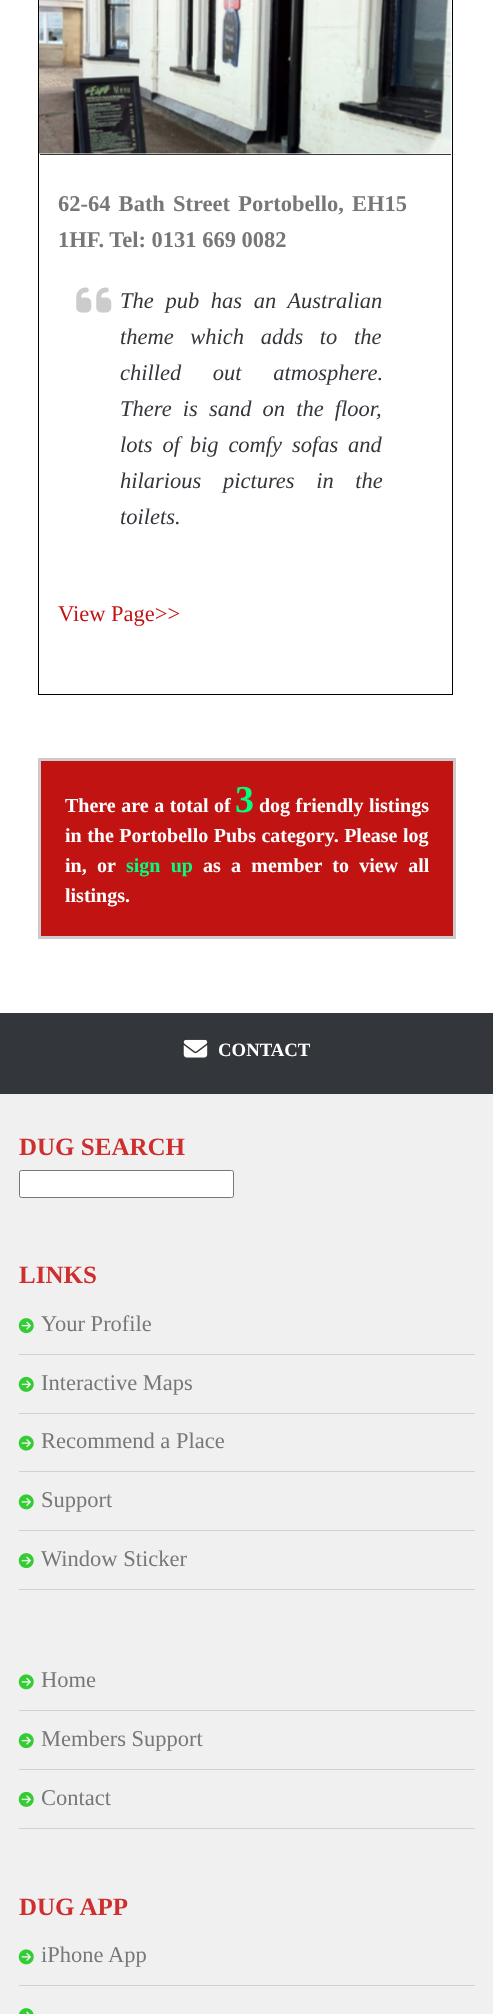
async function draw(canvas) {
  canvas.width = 493
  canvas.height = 2014
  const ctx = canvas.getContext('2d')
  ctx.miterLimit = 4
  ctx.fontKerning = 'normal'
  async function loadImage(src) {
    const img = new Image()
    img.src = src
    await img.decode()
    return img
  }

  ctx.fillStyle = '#fff'
  ctx.fillRect(0, 0, 493, 2014)
  ctx.strokeStyle = '#000'
  ctx.strokeRect(38.5, -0.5, 414, 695)
  ctx.fillStyle = '#33363b'
  ctx.fillRect(40, 154, 411, 1)
  ctx.drawImage(await loadImage('image0.png'), 39, 0, 413, 154)
  ctx.wordSpacing = '2.5px'
  ctx.font = 'bold 22.5px Liberation Serif'
  ctx.fillStyle = '#777'
  ctx.fillText('62-64 Bath Street Portobello, EH15', 58, 211)
  ctx.wordSpacing = '0px'
  ctx.fillText('1HF. Tel: 0131 669 0082', 58, 247)
  ctx.drawImage(await loadImage('image1.png'), 76, 287, 36, 26)
  ctx.wordSpacing = '6px'
  ctx.font = 'italic 22.5px Liberation Serif'
  ctx.fillStyle = '#33363b'
  ctx.fillText('The pub has an Australian', 120, 308)
  ctx.wordSpacing = '11px'
  ctx.fillText('theme which adds to the', 120, 344)
  ctx.wordSpacing = '26px'
  ctx.fillText('chilled out atmosphere.', 120, 380)
  ctx.wordSpacing = '5.5px'
  ctx.fillText('There is sand on the floor,', 120, 416)
  ctx.wordSpacing = '4.25px'
  ctx.fillText('lots of big comfy sofas and', 120, 452)
  ctx.wordSpacing = '16px'
  ctx.fillText('hilarious pictures in the', 120, 488)
  ctx.wordSpacing = '0px'
  ctx.fillText('toilets.', 120, 524)
  ctx.font = '22.5px Liberation Serif'
  ctx.fillStyle = '#c21313'
  ctx.fillText('View Page>>', 58, 621)
  ctx.beginPath()
  ctx.rect(39.5, 759.5, 415, 178)
  ctx.fill()
  ctx.strokeStyle = '#ccc'
  ctx.lineWidth = 3
  ctx.stroke()
  ctx.wordSpacing = '0.5px'
  ctx.font = 'bold 20px Liberation Serif'
  ctx.fillStyle = '#fff'
  ctx.fillText('There are a total of', 65, 812)
  ctx.wordSpacing = '0px'
  ctx.font = 'bold 38px Liberation Serif'
  ctx.fillStyle = '#00ff7f'
  ctx.fillText('3', 235, 812)
  ctx.wordSpacing = '0.5px'
  ctx.font = 'bold 20px Liberation Serif'
  ctx.fillStyle = '#fff'
  ctx.fillText('dog friendly listings', 259, 812)
  ctx.fillText('in the Portobello Pubs category. Please log', 65, 842)
  ctx.wordSpacing = '5.25px'
  ctx.fillText('in, or', 65, 872)
  ctx.fillStyle = '#00ff7f'
  ctx.fillText('sign up', 126, 872)
  ctx.fillStyle = '#fff'
  ctx.fillText('as a member to view all', 203, 872)
  ctx.wordSpacing = '0px'
  ctx.fillText('listings.', 65, 902)
  ctx.fillStyle = '#f0f0f0'
  ctx.fillRect(0, 1094, 493, 920)
  ctx.fillStyle = '#33363b'
  ctx.fillRect(0, 1013, 493, 81)
  ctx.drawImage(await loadImage('image2.png'), 183, 1039, 25, 19)
  ctx.font = 'bold 18.75px Liberation Serif'
  ctx.fillStyle = '#fff'
  ctx.fillText('CONTACT', 218, 1056)
  ctx.font = 'bold 25px Liberation Serif'
  ctx.fillStyle = '#cf2e2e'
  ctx.fillText('DUG SEARCH', 19, 1155)
  ctx.fillStyle = '#fff'
  ctx.beginPath()
  ctx.roundRect(19.5, 1170.5, 214, 27, 2)
  ctx.fill()
  ctx.strokeStyle = '#767676'
  ctx.lineWidth = 1
  ctx.stroke()
  ctx.fillStyle = '#cf2e2e'
  ctx.fillText('LINKS', 19, 1283)
  ctx.fillStyle = '#d4d0d0'
  ctx.fillRect(19, 1354, 456, 1)
  ctx.drawImage(await loadImage('image3.png'), 18, 1318, 16, 16)
  ctx.font = '22.5px Liberation Serif'
  ctx.fillStyle = '#777'
  ctx.fillText('Your Profile', 41, 1331)
  ctx.fillStyle = '#d4d0d0'
  ctx.fillRect(19, 1413, 456, 1)
  ctx.drawImage(await loadImage('image4.png'), 18, 1376, 16, 16)
  ctx.fillStyle = '#777'
  ctx.fillText('Interactive Maps', 41, 1390)
  ctx.fillStyle = '#d4d0d0'
  ctx.fillRect(19, 1471, 456, 1)
  ctx.drawImage(await loadImage('image5.png'), 18, 1435, 16, 16)
  ctx.fillStyle = '#777'
  ctx.fillText('Recommend a Place', 41, 1448)
  ctx.fillStyle = '#d4d0d0'
  ctx.fillRect(19, 1530, 456, 1)
  ctx.drawImage(await loadImage('image6.png'), 18, 1494, 16, 16)
  ctx.fillStyle = '#777'
  ctx.fillText('Support', 41, 1507)
  ctx.fillStyle = '#d4d0d0'
  ctx.fillRect(19, 1589, 456, 1)
  ctx.drawImage(await loadImage('image3.png'), 18, 1553, 16, 16)
  ctx.fillStyle = '#777'
  ctx.fillText('Window Sticker', 41, 1566)
  ctx.fillStyle = '#d4d0d0'
  ctx.fillRect(19, 1710, 456, 1)
  ctx.drawImage(await loadImage('image6.png'), 18, 1674, 16, 16)
  ctx.fillStyle = '#777'
  ctx.fillText('Home', 41, 1687)
  ctx.fillStyle = '#d4d0d0'
  ctx.fillRect(19, 1769, 456, 1)
  ctx.drawImage(await loadImage('image3.png'), 18, 1733, 16, 16)
  ctx.fillStyle = '#777'
  ctx.fillText('Members Support', 41, 1746)
  ctx.fillStyle = '#d4d0d0'
  ctx.fillRect(19, 1828, 456, 1)
  ctx.drawImage(await loadImage('image4.png'), 18, 1791, 16, 16)
  ctx.fillStyle = '#777'
  ctx.fillText('Contact', 41, 1805)
  ctx.font = 'bold 25px Liberation Serif'
  ctx.fillStyle = '#cf2e2e'
  ctx.fillText('DUG APP', 19, 1915)
  ctx.fillStyle = '#d4d0d0'
  ctx.fillRect(19, 1985, 456, 1)
  ctx.drawImage(await loadImage('image6.png'), 18, 1949, 16, 16)
  ctx.font = '22.5px Liberation Serif'
  ctx.fillStyle = '#777'
  ctx.fillText('iPhone App', 41, 1962)
  ctx.drawImage(await loadImage('image7.png'), 19, 2008, 15, 6)
}

draw(document.querySelector('canvas'))
